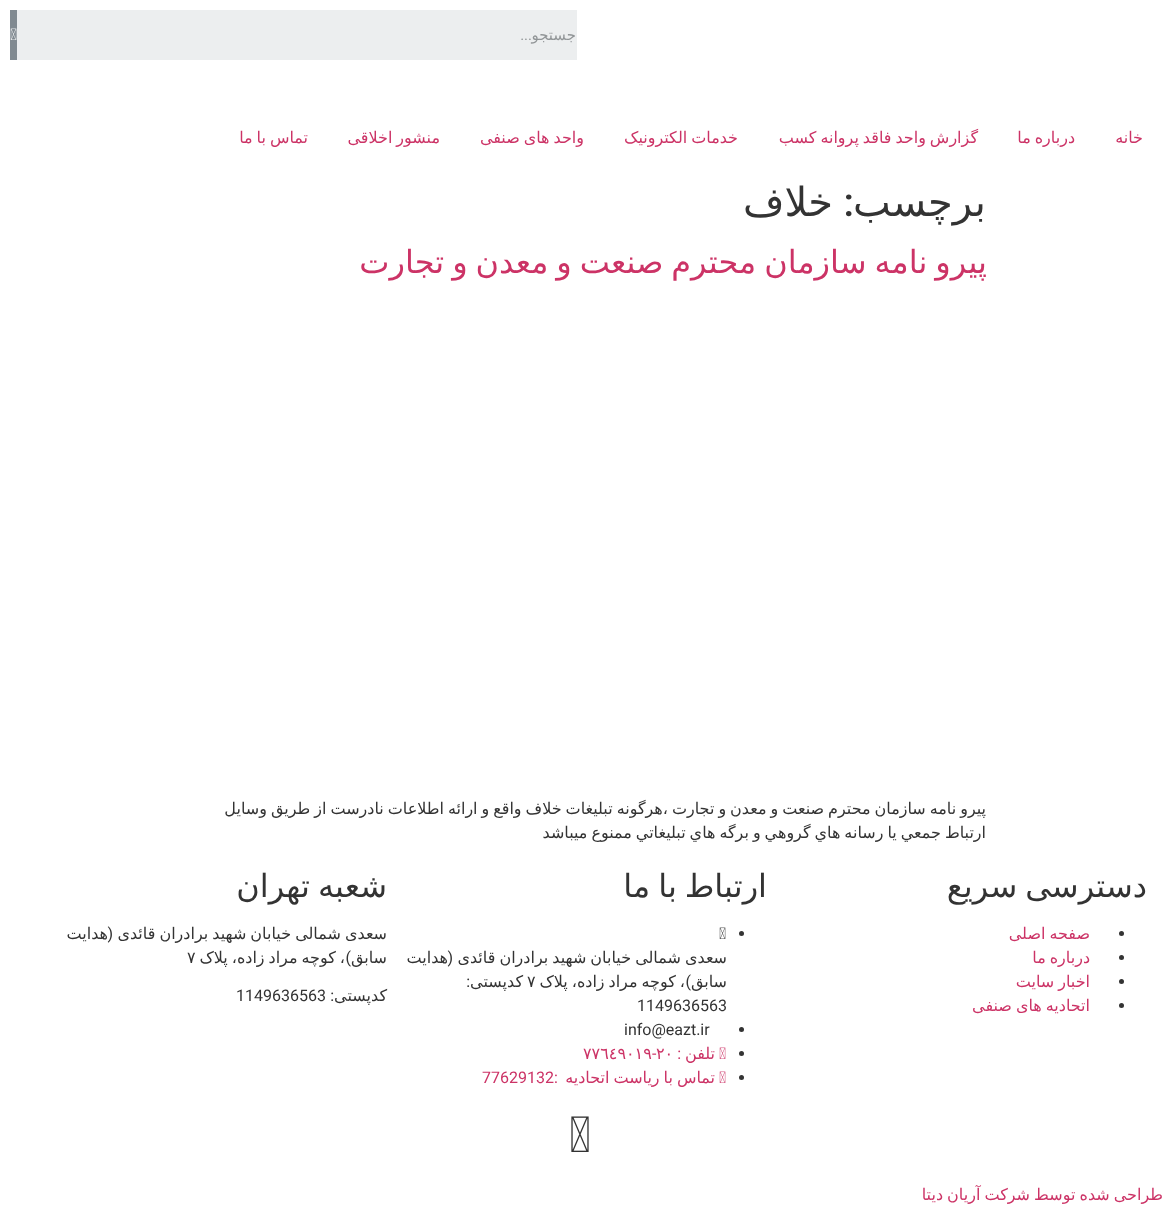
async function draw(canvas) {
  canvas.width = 1173
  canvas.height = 1216
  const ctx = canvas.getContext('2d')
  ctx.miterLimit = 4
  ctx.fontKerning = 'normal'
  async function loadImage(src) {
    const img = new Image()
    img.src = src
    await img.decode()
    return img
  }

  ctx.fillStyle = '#fff'
  ctx.fillRect(0, 0, 1173, 1216)
  ctx.fillStyle = '#eceeef'
  ctx.fillRect(17, 10, 560, 50)
  ctx.direction = 'rtl'
  ctx.font = '15px DejaVu Sans'
  ctx.fillStyle = '#919597'
  ctx.fillText('جستجو', 576, 40)
  ctx.font = '15px Roboto'
  ctx.fillText('...', 532, 40)
  ctx.fillStyle = '#818a91'
  ctx.fillRect(10, 10, 7, 50)
  ctx.drawImage(await loadImage('image0.png'), 10, 28, 7, 12)
  ctx.font = '16px DejaVu Sans'
  ctx.fillStyle = '#c36'
  ctx.fillText('خانه', 1143, 143)
  ctx.wordSpacing = '-1.1px'
  ctx.fillText('درباره ما', 1075, 143)
  ctx.fillText('گزارش واحد فاقد پروانه کسب', 978, 143)
  ctx.fillText('خدمات الکترونیک', 738, 143)
  ctx.fillText('واحد های صنفی', 584, 143)
  ctx.fillText('منشور اخلاقی', 440, 143)
  ctx.fillText('تماس با ما', 308, 143)
  ctx.wordSpacing = '0px'
  ctx.font = '40px DejaVu Sans'
  ctx.fillStyle = '#333'
  ctx.fillText('برچسب', 986, 216)
  ctx.font = '500 40px Roboto'
  ctx.fillText(':', 854, 216)
  ctx.font = '40px DejaVu Sans'
  ctx.fillText('خلاف', 833, 216)
  ctx.wordSpacing = '-2.25px'
  ctx.font = '32px DejaVu Sans'
  ctx.fillStyle = '#c36'
  ctx.fillText('پيرو نامه سازمان محترم صنعت و معدن و تجارت', 987, 273)
  ctx.wordSpacing = '-1.1px'
  ctx.font = '16px DejaVu Sans'
  ctx.fillStyle = '#333'
  ctx.fillText('پيرو نامه سازمان محترم صنعت و معدن و تجارت ،هرگونه تبليغات خلاف واقع و ارائه اطلاعات نادرست از طريق وسايل', 986, 814)
  ctx.fillText('ارتباط جمعي يا رسانه هاي گروهي و برگه هاي تبليغاتي ممنوع ميباشد', 986, 838)
  ctx.wordSpacing = '-2.25px'
  ctx.font = '32px DejaVu Sans'
  ctx.fillText('دسترسی سریع', 1147, 897)
  ctx.beginPath()
  ctx.arc(1121.5, 933.5, 2.5, 0, 2 * Math.PI)
  ctx.fill()
  ctx.wordSpacing = '-1.1px'
  ctx.font = '16px DejaVu Sans'
  ctx.fillStyle = '#c36'
  ctx.fillText('صفحه اصلی', 1090, 939)
  ctx.fillStyle = '#333'
  ctx.beginPath()
  ctx.arc(1121.5, 957.5, 2.5, 0, 2 * Math.PI)
  ctx.fill()
  ctx.fillStyle = '#c36'
  ctx.fillText('درباره ما', 1090, 963)
  ctx.fillStyle = '#333'
  ctx.beginPath()
  ctx.arc(1121.5, 981.5, 2.5, 0, 2 * Math.PI)
  ctx.fill()
  ctx.fillStyle = '#c36'
  ctx.fillText('اخبار سایت', 1090, 987)
  ctx.fillStyle = '#333'
  ctx.beginPath()
  ctx.arc(1121.5, 1005.5, 2.5, 0, 2 * Math.PI)
  ctx.fill()
  ctx.fillStyle = '#c36'
  ctx.fillText('اتحادیه های صنفی', 1090, 1011)
  ctx.wordSpacing = '-2.25px'
  ctx.font = '32px DejaVu Sans'
  ctx.fillStyle = '#333'
  ctx.fillText('ارتباط با ما', 767, 897)
  ctx.beginPath()
  ctx.arc(741.5, 933.5, 2.5, 0, 2 * Math.PI)
  ctx.fill()
  ctx.drawImage(await loadImage('image1.png'), 719, 927, 7, 12)
  ctx.wordSpacing = '-1px'
  ctx.font = '16px DejaVu Sans'
  ctx.fillText('سعدی شمالی خیابان شهید برادران قائدی', 727, 963)
  ctx.wordSpacing = '0px'
  ctx.font = '16px Roboto'
  ctx.fillText('(', 453, 963)
  ctx.font = '16px DejaVu Sans'
  ctx.fillText('هدایت', 448, 963)
  ctx.fillText('سابق', 727, 987)
  ctx.font = '16px Roboto'
  ctx.fillText(')', 691, 987)
  ctx.wordSpacing = '-1.1px'
  ctx.font = '16px DejaVu Sans'
  ctx.fillText('، کوچه مراد زاده، پلاک', 685, 987)
  ctx.wordSpacing = '0px'
  ctx.direction = 'ltr'
  ctx.fillText('۷', 527, 987)
  ctx.direction = 'rtl'
  ctx.fillText('کدپستی', 523, 987)
  ctx.font = '16px Roboto'
  ctx.fillText(':', 470, 987)
  ctx.direction = 'ltr'
  ctx.fillText('1149636563', 637, 1011)
  ctx.beginPath()
  ctx.arc(741.5, 1029.5, 2.5, 0, 2 * Math.PI)
  ctx.fill()
  ctx.fillText('info@eazt.ir', 624, 1035)
  ctx.beginPath()
  ctx.arc(741.5, 1053.5, 2.5, 0, 2 * Math.PI)
  ctx.fill()
  ctx.drawImage(await loadImage('image2.png'), 719, 1047, 7, 12)
  ctx.direction = 'rtl'
  ctx.font = '16px DejaVu Sans'
  ctx.fillStyle = '#c36'
  ctx.fillText('تلفن', 715, 1059)
  ctx.font = '16px Roboto'
  ctx.fillText(':', 681, 1059)
  ctx.direction = 'ltr'
  ctx.font = '16px DejaVu Sans'
  ctx.fillText('٢٠', 656, 1059)
  ctx.font = '16px Roboto'
  ctx.fillText('-', 652, 1059)
  ctx.font = '16px DejaVu Sans'
  ctx.fillText('٧٧٦٤٩٠١٩', 583, 1059)
  ctx.fillStyle = '#333'
  ctx.beginPath()
  ctx.arc(741.5, 1077.5, 2.5, 0, 2 * Math.PI)
  ctx.fill()
  ctx.drawImage(await loadImage('image2.png'), 719, 1071, 7, 12)
  ctx.wordSpacing = '-1.1px'
  ctx.direction = 'rtl'
  ctx.fillStyle = '#c36'
  ctx.fillText('تماس با ریاست اتحادیه', 715, 1083)
  ctx.wordSpacing = '0px'
  ctx.direction = 'ltr'
  ctx.font = '16px Roboto'
  ctx.fillText('77629132:', 482, 1083)
  ctx.drawImage(await loadImage('image3.png'), 571, 1116, 18, 36)
  ctx.wordSpacing = '-2.25px'
  ctx.direction = 'rtl'
  ctx.font = '32px DejaVu Sans'
  ctx.fillStyle = '#333'
  ctx.fillText('شعبه تهران', 387, 897)
  ctx.wordSpacing = '-1px'
  ctx.font = '16px DejaVu Sans'
  ctx.fillText('سعدی شمالی خیابان شهید برادران قائدی', 387, 939)
  ctx.wordSpacing = '0px'
  ctx.font = '16px Roboto'
  ctx.fillText('(', 113, 939)
  ctx.font = '16px DejaVu Sans'
  ctx.fillText('هدایت', 108, 939)
  ctx.fillText('سابق', 387, 963)
  ctx.font = '16px Roboto'
  ctx.fillText(')', 351, 963)
  ctx.wordSpacing = '-1.1px'
  ctx.font = '16px DejaVu Sans'
  ctx.fillText('، کوچه مراد زاده، پلاک', 345, 963)
  ctx.wordSpacing = '0px'
  ctx.direction = 'ltr'
  ctx.fillText('۷', 187, 963)
  ctx.direction = 'rtl'
  ctx.fillText('کدپستی', 387, 1001)
  ctx.font = '16px Roboto'
  ctx.fillText(':', 334, 1001)
  ctx.direction = 'ltr'
  ctx.fillText('1149636563', 236, 1001)
  ctx.wordSpacing = '-1px'
  ctx.direction = 'rtl'
  ctx.font = '16px DejaVu Sans'
  ctx.fillStyle = '#c36'
  ctx.fillText('طراحی شده توسط شرکت آریان دیتا', 1163, 1200)
}

draw(document.querySelector('canvas'))
